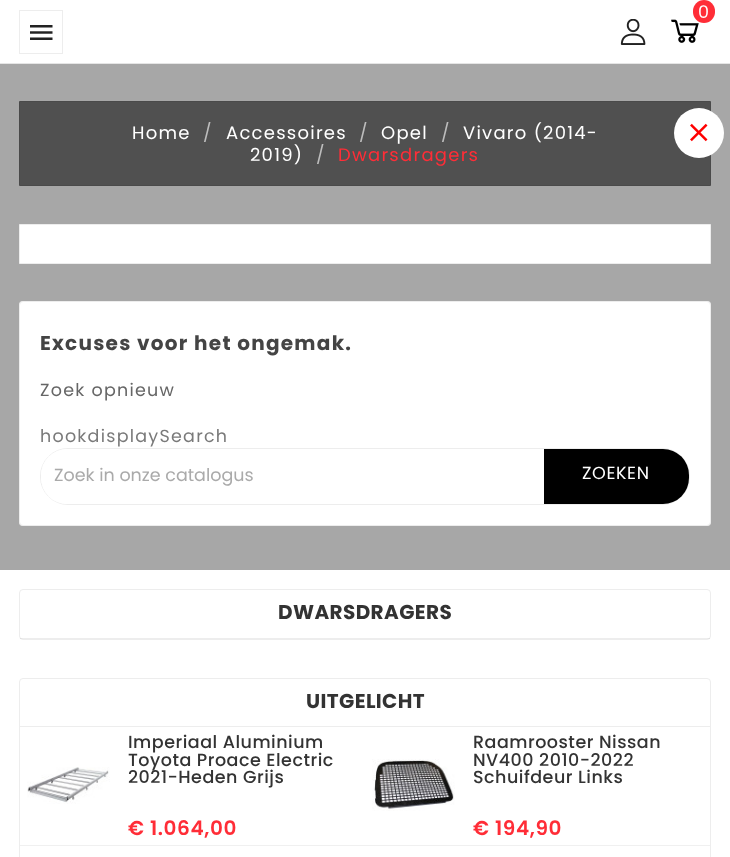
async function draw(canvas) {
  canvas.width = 730
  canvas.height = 857
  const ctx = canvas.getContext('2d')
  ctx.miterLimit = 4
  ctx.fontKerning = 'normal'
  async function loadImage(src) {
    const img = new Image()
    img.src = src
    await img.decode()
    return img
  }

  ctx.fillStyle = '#a7a7a7'
  ctx.fillRect(0, 0, 730, 857)
  ctx.fillStyle = '#e5e5e5'
  ctx.fillRect(0, 63, 730, 1)
  ctx.fillStyle = '#fff'
  ctx.fillRect(0, 0, 730, 63)
  ctx.strokeStyle = '#ededed'
  ctx.strokeRect(19.5, 10.5, 43, 43)
  ctx.drawImage(await loadImage('image0.png'), 30, 25, 23, 15)
  ctx.drawImage(await loadImage('image1.png'), 671, 19, 28, 24)
  ctx.fillStyle = '#ff2d37'
  ctx.beginPath()
  ctx.roundRect(693, 0, 22, 23, 11)
  ctx.fill()
  ctx.letterSpacing = '1.25px'
  ctx.font = '17.5px Poppins'
  ctx.fillStyle = '#fff'
  ctx.fillText('0', 698, 18)
  ctx.drawImage(await loadImage('image2.png'), 620, 19, 26, 26)
  ctx.fillStyle = '#505050'
  ctx.beginPath()
  ctx.roundRect(19, 101, 692, 85, 1)
  ctx.fill()
  ctx.strokeStyle = '#00000012'
  ctx.strokeRect(19.5, 101.5, 691, 84)
  ctx.font = '18px Poppins'
  ctx.fillStyle = '#fff'
  ctx.fillText('Home', 132, 139)
  ctx.fillStyle = '#bdbdbd'
  ctx.fillText('/', 203, 139)
  ctx.fillStyle = '#fff'
  ctx.fillText('Accessoires', 226, 139)
  ctx.fillStyle = '#bdbdbd'
  ctx.fillText('/', 359, 139)
  ctx.fillStyle = '#fff'
  ctx.fillText('Opel', 381, 139)
  ctx.fillStyle = '#bdbdbd'
  ctx.fillText('/', 441, 139)
  ctx.fillStyle = '#fff'
  ctx.fillText('Vivaro (2014-', 463, 139)
  ctx.fillText('2019)', 250, 161)
  ctx.fillStyle = '#bdbdbd'
  ctx.fillText('/', 316, 161)
  ctx.fillStyle = '#ff2d37'
  ctx.fillText('Dwarsdragers', 338, 161)
  ctx.fillStyle = '#fff'
  ctx.beginPath()
  ctx.rect(19.5, 224.5, 691, 39)
  ctx.fill()
  ctx.strokeStyle = '#ededed'
  ctx.stroke()
  ctx.beginPath()
  ctx.roundRect(19, 301, 692, 225, 4)
  ctx.fill()
  ctx.beginPath()
  ctx.roundRect(19.5, 301.5, 691, 224, 3.5)
  ctx.strokeStyle = '#00000012'
  ctx.stroke()
  ctx.font = 'bold 20px Poppins'
  ctx.fillStyle = '#444'
  ctx.fillText('Excuses voor het ongemak.', 40, 350)
  ctx.font = '17.5px Poppins'
  ctx.fillStyle = '#666'
  ctx.fillText('Zoek opnieuw', 40, 396)
  ctx.fillStyle = '#7a7a7a'
  ctx.fillText('hookdisplaySearch', 40, 442)
  ctx.beginPath()
  ctx.roundRect(40.5, 448.5, 649, 56, 27.5)
  ctx.strokeStyle = '#ededed'
  ctx.stroke()
  ctx.fillStyle = '#fff'
  ctx.beginPath()
  ctx.roundRect(41, 449, 503, 55, [26, 0, 0, 26])
  ctx.fill()
  ctx.letterSpacing = '0px'
  ctx.fillStyle = '#aaa'
  ctx.fillText('Zoek in onze catalogus', 54, 481)
  ctx.fillStyle = '#000'
  ctx.beginPath()
  ctx.roundRect(544, 449, 145, 55, [0, 26, 26, 0])
  ctx.fill()
  ctx.letterSpacing = '0.6px'
  ctx.fillStyle = '#fff'
  ctx.fillText('ZOEKEN', 582, 479)
  ctx.fillRect(0, 570, 730, 287)
  ctx.beginPath()
  ctx.arc(699, 133, 25, 0, 2 * Math.PI)
  ctx.fill()
  ctx.drawImage(await loadImage('image3.png'), 690, 123, 18, 19)
  ctx.beginPath()
  ctx.roundRect(19.5, 589.5, 691, 50, 3.5)
  ctx.stroke()
  ctx.letterSpacing = '0.4px'
  ctx.font = 'bold 20px Poppins'
  ctx.fillStyle = '#333'
  ctx.fillText('DWARSDRAGERS', 278, 619)
  ctx.fillStyle = '#00000012'
  ctx.fillRect(20, 638, 690, 1)
  ctx.beginPath()
  ctx.roundRect(19.5, 678.5, 691, 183, 3.5)
  ctx.stroke()
  ctx.fillStyle = '#333'
  ctx.fillText('UITGELICHT', 306, 708)
  ctx.fillStyle = '#ededed'
  ctx.fillRect(20, 726, 690, 1)
  ctx.fillStyle = '#f0f0f0'
  ctx.fillRect(20, 845, 690, 1)
  ctx.drawImage(await loadImage('image4.png'), 27, 767, 83, 37)
  ctx.letterSpacing = '0.5px'
  ctx.font = '500 17.5px Poppins'
  ctx.fillStyle = '#333'
  ctx.fillText('Imperiaal Aluminium', 128, 748)
  ctx.fillText('Toyota Proace Electric', 128, 766)
  ctx.fillText('2021-Heden Grijs', 128, 783)
  ctx.letterSpacing = '0.6px'
  ctx.font = '600 20px Poppins'
  ctx.fillStyle = '#ff2d37'
  ctx.fillText('€ 1.064,00', 128, 835)
  ctx.drawImage(await loadImage('image5.png'), 372, 759, 83, 52)
  ctx.letterSpacing = '0.5px'
  ctx.font = '500 17.5px Poppins'
  ctx.fillStyle = '#333'
  ctx.fillText('Raamrooster Nissan', 473, 748)
  ctx.fillText('NV400 2010-2022', 473, 766)
  ctx.fillText('Schuifdeur Links', 473, 783)
  ctx.letterSpacing = '0.6px'
  ctx.font = '600 20px Poppins'
  ctx.fillStyle = '#ff2d37'
  ctx.fillText('€ 194,90', 473, 835)
}

draw(document.querySelector('canvas'))
